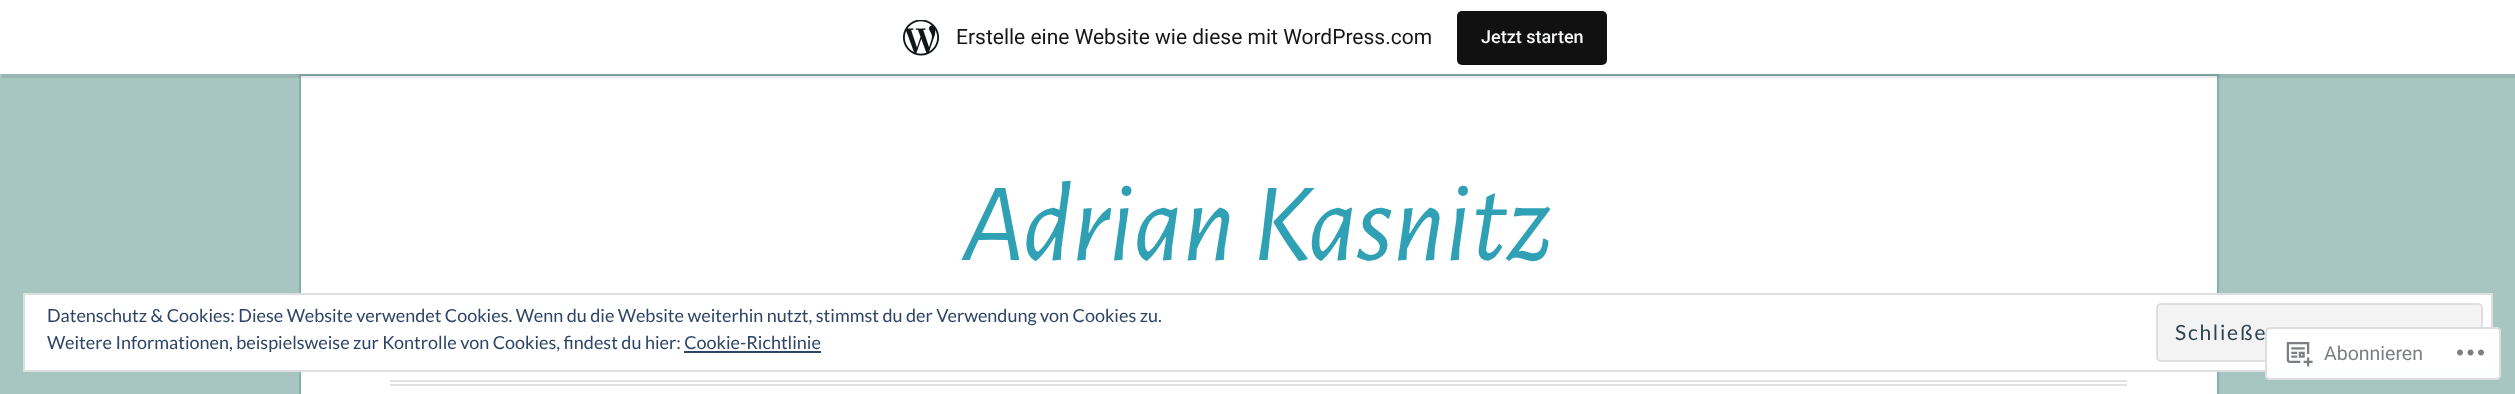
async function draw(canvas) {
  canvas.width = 2515
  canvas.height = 394
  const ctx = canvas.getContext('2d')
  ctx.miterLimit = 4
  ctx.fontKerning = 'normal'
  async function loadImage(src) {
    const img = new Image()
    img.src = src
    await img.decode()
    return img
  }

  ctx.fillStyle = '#a7c5c1'
  ctx.fillRect(0, 0, 2515, 394)
  ctx.fillStyle = '#fff'
  ctx.beginPath()
  ctx.rect(300, 75, 1918, 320)
  ctx.fill()
  ctx.strokeStyle = '#86b0aa'
  ctx.lineWidth = 2
  ctx.stroke()
  ctx.fillStyle = '#00000014'
  ctx.beginPath()
  ctx.moveTo(2, 74)
  ctx.lineTo(2, 78)
  ctx.lineTo(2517, 78)
  ctx.lineTo(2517, 5)
  ctx.lineTo(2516, 5)
  ctx.lineTo(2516, 74)
  ctx.closePath()
  ctx.fill()
  ctx.fillStyle = '#fff'
  ctx.fillRect(0, 0, 2515, 74)
  ctx.drawImage(await loadImage('image0.png'), 903, 20, 36, 36)
  ctx.font = '21px Roboto'
  ctx.fillStyle = '#171717'
  ctx.fillText('Erstelle eine Website wie diese mit WordPress.com', 956, 44)
  ctx.fillStyle = '#111'
  ctx.beginPath()
  ctx.roundRect(1457, 11, 150, 54, 5)
  ctx.fill()
  ctx.font = '500 18px Roboto'
  ctx.fillStyle = '#f6f7f7'
  ctx.fillText('Jetzt starten', 1481, 43)
  ctx.font = 'italic 112.5px Alegreya Sans'
  ctx.fillStyle = '#30a1b5'
  ctx.fillText('Adrian Kasnitz', 963, 260)
  ctx.fillStyle = '#e1e1e1'
  ctx.fillRect(390, 380, 1737, 2)
  ctx.fillRect(390, 384, 1737, 2)
  ctx.fillStyle = '#fff'
  ctx.beginPath()
  ctx.rect(24, 294, 2468, 77)
  ctx.fill()
  ctx.strokeStyle = '#dedede'
  ctx.stroke()
  ctx.font = '18px Lato'
  ctx.fillStyle = '#2e4467'
  ctx.fillText('Datenschutz & Cookies: Diese Website verwendet Cookies. Wenn du die Website weiterhin nutzt, stimmst du der Verwendung von Cookies zu.', 47, 322)
  ctx.fillStyle = '#f3f3f3'
  ctx.beginPath()
  ctx.roundRect(2157, 304, 325, 57, 4)
  ctx.fill()
  ctx.stroke()
  ctx.letterSpacing = '1.75px'
  ctx.font = '21px Lato'
  ctx.fillStyle = '#2e4453'
  ctx.fillText('Schließe', 2175, 340)
  ctx.letterSpacing = '0px'
  ctx.font = '18px Lato'
  ctx.fillStyle = '#2e4467'
  ctx.fillText('Weitere Informationen, beispielsweise zur Kontrolle von Cookies, findest du hier: Cookie-Richtlinie', 47, 349)
  ctx.fillRect(684, 351, 137, 2)
  ctx.fillStyle = '#fffffffa'
  ctx.beginPath()
  ctx.roundRect(2265, 327, 236, 53, 5)
  ctx.fill()
  ctx.beginPath()
  ctx.roundRect(2266, 328, 234, 51, 4)
  ctx.strokeStyle = '#dcdcdefa'
  ctx.stroke()
  ctx.drawImage(await loadImage('image1.png'), 2286, 342, 27, 25)
  ctx.font = '19.5px Roboto'
  ctx.fillStyle = '#7b7f84'
  ctx.fillText('Abonnieren', 2324, 360)
  ctx.drawImage(await loadImage('image2.png'), 2457, 349, 27, 7)
}

draw(document.querySelector('canvas'))
